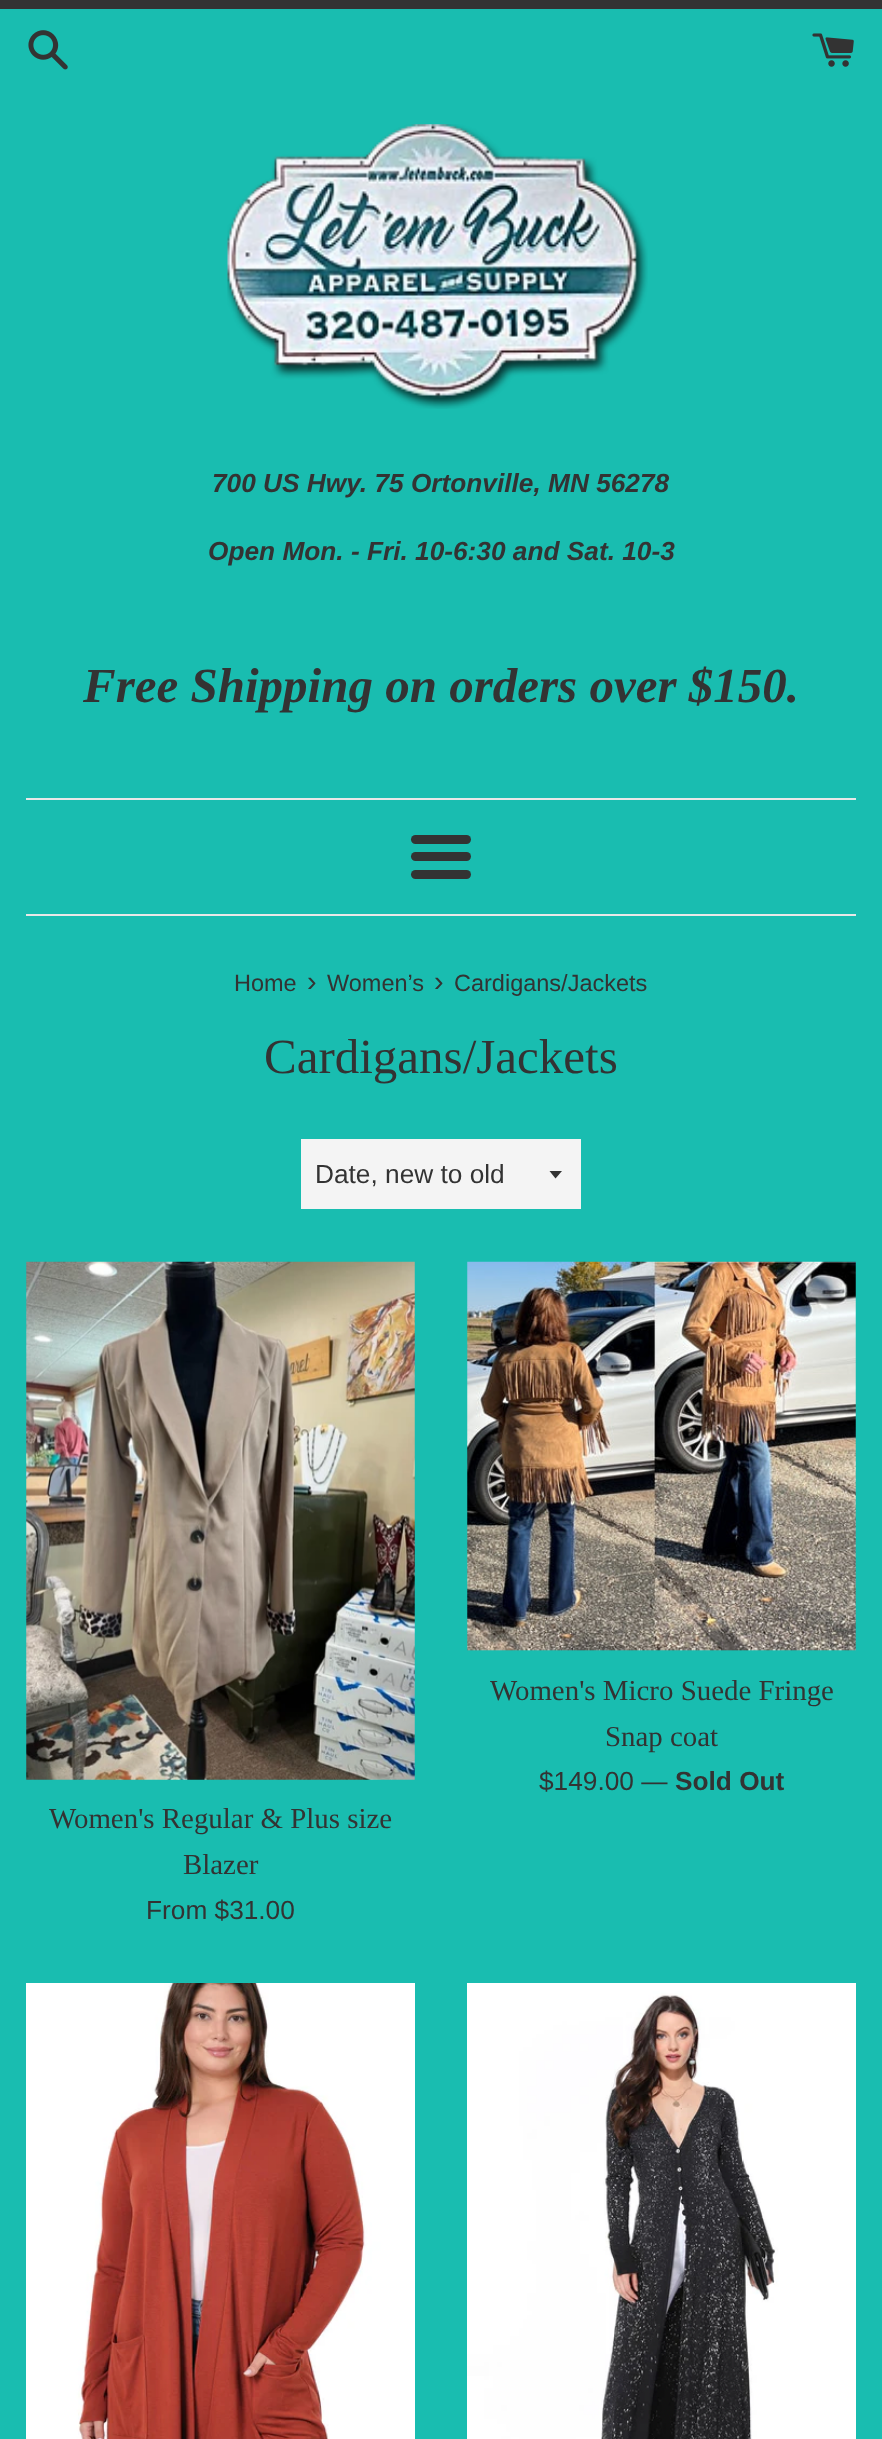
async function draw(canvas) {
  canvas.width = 882
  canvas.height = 2439
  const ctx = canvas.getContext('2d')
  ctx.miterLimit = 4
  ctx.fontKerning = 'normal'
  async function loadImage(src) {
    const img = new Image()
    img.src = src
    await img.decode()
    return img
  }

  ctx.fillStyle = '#19bdb0'
  ctx.fillRect(0, 0, 882, 2439)
  ctx.fillStyle = '#333'
  ctx.fillRect(0, 0, 882, 9)
  ctx.drawImage(await loadImage('image0.png'), 28, 30, 40, 40)
  ctx.drawImage(await loadImage('image1.png'), 812, 33, 42, 34)
  ctx.drawImage(await loadImage('image2.png'), 227, 124, 421, 285)
  ctx.font = 'italic bold 26.25px Liberation Sans'
  ctx.fillText('700 US Hwy. 75 Ortonville, MN 56278', 212, 492)
  ctx.fillText('Open Mon. - Fri. 10-6:30 and Sat. 10-3', 208, 560)
  ctx.font = 'italic bold 49px Liberation Serif'
  ctx.fillText('Free Shipping on orders over $150.', 83, 702)
  ctx.fillStyle = '#e8e8e8'
  ctx.fillRect(26, 798, 830, 2)
  ctx.fillStyle = '#333'
  ctx.beginPath()
  ctx.roundRect(411, 835, 60, 9, 4.5)
  ctx.fill()
  ctx.beginPath()
  ctx.roundRect(411, 852, 60, 9, 4.5)
  ctx.fill()
  ctx.beginPath()
  ctx.roundRect(411, 870, 60, 9, 4.5)
  ctx.fill()
  ctx.fillStyle = '#e8e8e8'
  ctx.fillRect(26, 914, 830, 2)
  ctx.font = '23.5px Liberation Sans'
  ctx.fillStyle = '#333'
  ctx.fillText('Home', 234, 991)
  ctx.font = '28.9px Liberation Sans'
  ctx.fillText('›', 307, 991)
  ctx.font = '23.5px Liberation Sans'
  ctx.fillText('Women’s', 327, 991)
  ctx.font = '28.9px Liberation Sans'
  ctx.fillText('›', 434, 991)
  ctx.font = '23.5px Liberation Sans'
  ctx.fillText('Cardigans/Jackets', 454, 991)
  ctx.font = '49px Liberation Serif'
  ctx.fillText('Cardigans/Jackets', 264, 1073)
  ctx.fillStyle = '#f4f4f4'
  ctx.fillRect(301, 1139, 280, 70)
  ctx.fillStyle = '#333'
  ctx.beginPath()
  ctx.moveTo(549.5, 1171)
  ctx.lineTo(555.5, 1178.5)
  ctx.lineTo(562, 1171)
  ctx.closePath()
  ctx.fill()
  ctx.font = '26.25px Liberation Sans'
  ctx.fillText('Date, new to old', 315, 1183)
  ctx.drawImage(await loadImage('image3.png'), 467, 1261, 389, 390)
  ctx.font = '28.9px Liberation Serif'
  ctx.fillText('Women\'s Micro Suede Fringe', 490, 1700)
  ctx.fillText('Snap coat', 605, 1746)
  ctx.font = '26.25px Liberation Sans'
  ctx.fillText('$149.00 —', 539, 1790)
  ctx.font = 'bold 26.25px Liberation Sans'
  ctx.fillText('Sold Out', 675, 1790)
  ctx.drawImage(await loadImage('image4.png'), 26, 1261, 389, 519)
  ctx.font = '28.9px Liberation Serif'
  ctx.fillText('Women\'s Regular & Plus size', 49, 1828)
  ctx.fillText('Blazer', 183, 1874)
  ctx.font = '26.25px Liberation Sans'
  ctx.fillText('From $31.00', 146, 1919)
  ctx.drawImage(await loadImage('image5.png'), 26, 1983, 389, 456)
  ctx.drawImage(await loadImage('image6.png'), 467, 1983, 389, 456)
}

draw(document.querySelector('canvas'))
